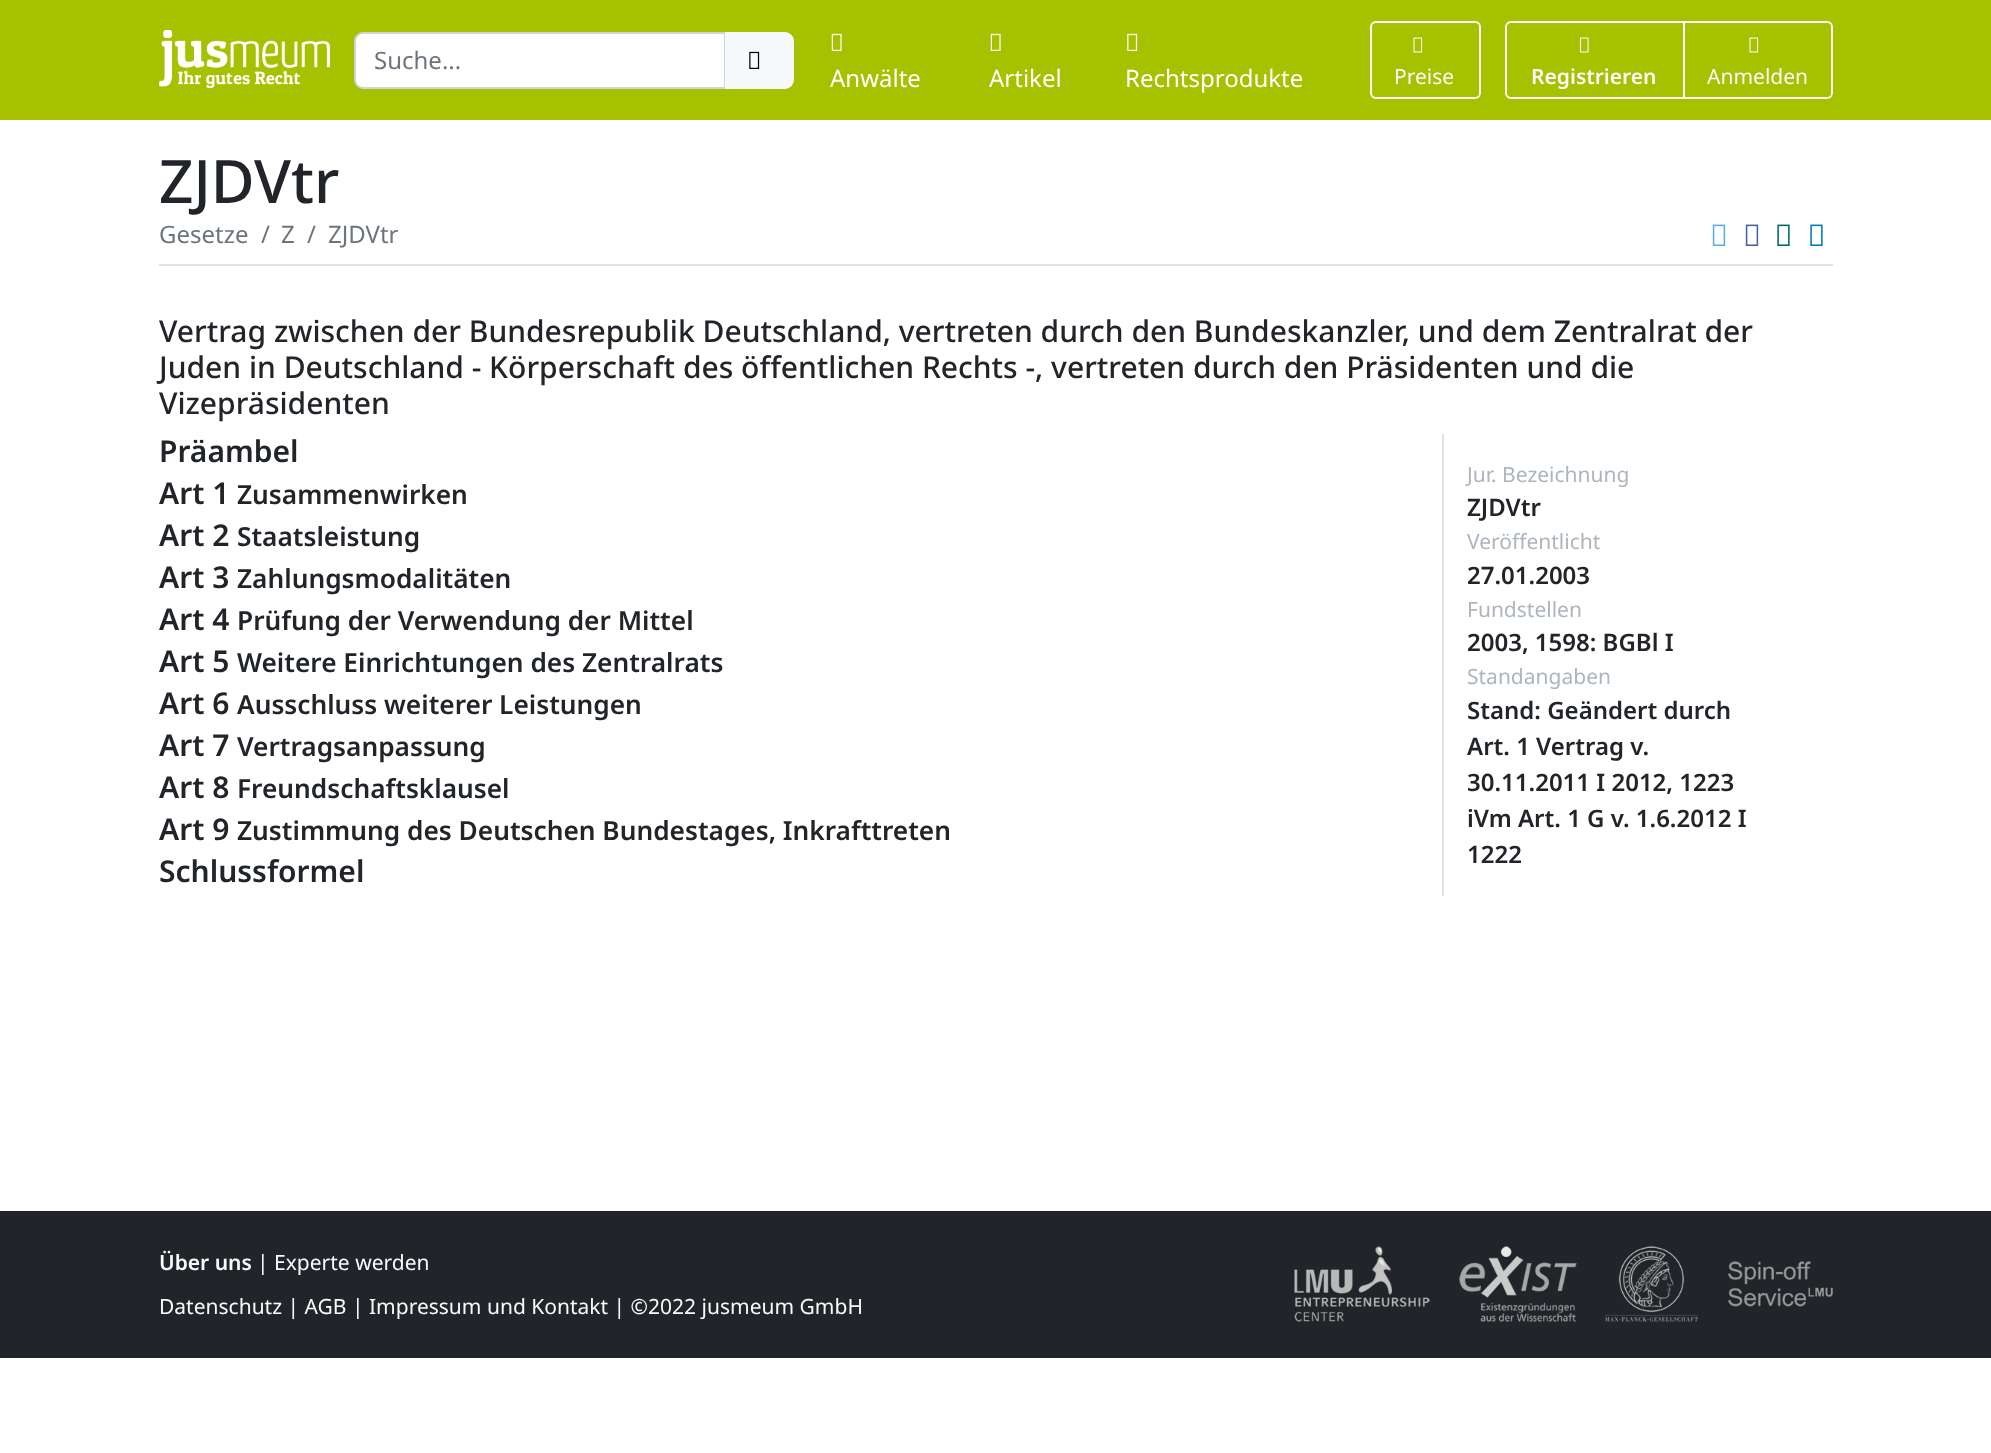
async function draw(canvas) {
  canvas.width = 1991
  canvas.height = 1453
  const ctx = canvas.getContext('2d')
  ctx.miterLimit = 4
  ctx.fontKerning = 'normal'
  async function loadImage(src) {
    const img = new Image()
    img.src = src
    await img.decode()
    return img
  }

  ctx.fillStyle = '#fff'
  ctx.fillRect(0, 0, 1991, 1453)
  ctx.fillStyle = '#a5c100'
  ctx.fillRect(0, 0, 1991, 120)
  ctx.drawImage(await loadImage('image0.png'), 159, 30, 171, 59)
  ctx.fillStyle = '#fff'
  ctx.beginPath()
  ctx.roundRect(355, 33, 370, 55, [8, 0, 0, 8])
  ctx.fill()
  ctx.strokeStyle = '#ced4da'
  ctx.lineWidth = 2
  ctx.stroke()
  ctx.font = '24px Noto Sans'
  ctx.fillStyle = '#6c757d'
  ctx.fillText('Suche...', 374, 69)
  ctx.fillStyle = '#f8f9fa'
  ctx.beginPath()
  ctx.roundRect(726, 33, 67, 55, [0, 8, 8, 0])
  ctx.fill()
  ctx.strokeStyle = '#f8f9fa'
  ctx.stroke()
  ctx.drawImage(await loadImage('image1.png'), 749, 51, 11, 18)
  ctx.drawImage(await loadImage('image2.png'), 831, 33, 11, 18)
  ctx.fillStyle = '#fff'
  ctx.fillText('Anwälte', 830, 87)
  ctx.drawImage(await loadImage('image2.png'), 990, 33, 11, 18)
  ctx.fillText('Artikel', 989, 87)
  ctx.drawImage(await loadImage('image3.png'), 1127, 33, 11, 18)
  ctx.fillText('Rechtsprodukte', 1125, 87)
  ctx.beginPath()
  ctx.roundRect(1371, 22, 109, 76, 5)
  ctx.stroke()
  ctx.drawImage(await loadImage('image4.png'), 1413, 37, 10, 16)
  ctx.font = '21px Noto Sans'
  ctx.fillStyle = '#f8f9fa'
  ctx.fillText('Preise', 1394, 84)
  ctx.beginPath()
  ctx.roundRect(1506, 22, 178, 76, [5, 0, 0, 5])
  ctx.stroke()
  ctx.drawImage(await loadImage('image5.png'), 1579, 37, 10, 16)
  ctx.font = '600 21px Noto Sans'
  ctx.fillText('Registrieren', 1531, 84)
  ctx.beginPath()
  ctx.roundRect(1684, 22, 148, 76, [0, 5, 5, 0])
  ctx.stroke()
  ctx.drawImage(await loadImage('image4.png'), 1749, 37, 10, 16)
  ctx.font = '21px Noto Sans'
  ctx.fillText('Anmelden', 1707, 84)
  ctx.font = '500 60px Noto Sans'
  ctx.fillStyle = '#212529'
  ctx.fillText('ZJDVtr', 159, 203)
  ctx.fillStyle = '#dee2e6'
  ctx.fillRect(159, 264, 1674, 2)
  ctx.font = '24px Noto Sans'
  ctx.fillStyle = '#6c757d'
  ctx.fillText('Gesetze', 159, 243)
  ctx.fillText('/', 261, 243)
  ctx.fillText('Z', 281, 243)
  ctx.fillText('/', 307, 243)
  ctx.fillText('ZJDVtr', 328, 243)
  ctx.drawImage(await loadImage('image6.png'), 1712, 224, 14, 22)
  ctx.drawImage(await loadImage('image7.png'), 1745, 224, 14, 22)
  ctx.drawImage(await loadImage('image8.png'), 1777, 224, 13, 22)
  ctx.drawImage(await loadImage('image9.png'), 1810, 224, 13, 22)
  ctx.font = '500 30px Noto Sans'
  ctx.fillStyle = '#212529'
  ctx.fillText('Vertrag zwischen der Bundesrepublik Deutschland, vertreten durch den Bundeskanzler, und dem Zentralrat der', 159, 342)
  ctx.fillText('Juden in Deutschland - Körperschaft des öffentlichen Rechts -, vertreten durch den Präsidenten und die', 159, 378)
  ctx.fillText('Vizepräsidenten', 159, 414)
  ctx.font = '600 30px Noto Sans'
  ctx.fillText('Präambel', 159, 462)
  ctx.fillText('Art 1', 159, 504)
  ctx.font = '600 26.25px Noto Sans'
  ctx.fillText('Zusammenwirken', 237, 504)
  ctx.font = '600 30px Noto Sans'
  ctx.fillText('Art 2', 159, 546)
  ctx.font = '600 26.25px Noto Sans'
  ctx.fillText('Staatsleistung', 237, 546)
  ctx.font = '600 30px Noto Sans'
  ctx.fillText('Art 3', 159, 588)
  ctx.font = '600 26.25px Noto Sans'
  ctx.fillText('Zahlungsmodalitäten', 237, 588)
  ctx.font = '600 30px Noto Sans'
  ctx.fillText('Art 4', 159, 630)
  ctx.font = '600 26.25px Noto Sans'
  ctx.fillText('Prüfung der Verwendung der Mittel', 237, 630)
  ctx.font = '600 30px Noto Sans'
  ctx.fillText('Art 5', 159, 672)
  ctx.font = '600 26.25px Noto Sans'
  ctx.fillText('Weitere Einrichtungen des Zentralrats', 237, 672)
  ctx.font = '600 30px Noto Sans'
  ctx.fillText('Art 6', 159, 714)
  ctx.font = '600 26.25px Noto Sans'
  ctx.fillText('Ausschluss weiterer Leistungen', 237, 714)
  ctx.font = '600 30px Noto Sans'
  ctx.fillText('Art 7', 159, 756)
  ctx.font = '600 26.25px Noto Sans'
  ctx.fillText('Vertragsanpassung', 237, 756)
  ctx.font = '600 30px Noto Sans'
  ctx.fillText('Art 8', 159, 798)
  ctx.font = '600 26.25px Noto Sans'
  ctx.fillText('Freundschaftsklausel', 237, 798)
  ctx.font = '600 30px Noto Sans'
  ctx.fillText('Art 9', 159, 840)
  ctx.font = '600 26.25px Noto Sans'
  ctx.fillText('Zustimmung des Deutschen Bundestages, Inkrafttreten', 237, 840)
  ctx.font = '600 30px Noto Sans'
  ctx.fillText('Schlussformel', 159, 882)
  ctx.fillStyle = '#dee2e6'
  ctx.fillRect(1442, 434, 2, 462)
  ctx.font = '21px Noto Sans'
  ctx.fillStyle = '#adb5bd'
  ctx.fillText('Jur. Bezeichnung', 1467, 482)
  ctx.font = '600 24px Noto Sans'
  ctx.fillStyle = '#212529'
  ctx.fillText('ZJDVtr', 1467, 516)
  ctx.font = '21px Noto Sans'
  ctx.fillStyle = '#adb5bd'
  ctx.fillText('Veröffentlicht', 1467, 549)
  ctx.font = '600 24px Noto Sans'
  ctx.fillStyle = '#212529'
  ctx.fillText('27.01.2003', 1467, 584)
  ctx.font = '21px Noto Sans'
  ctx.fillStyle = '#adb5bd'
  ctx.fillText('Fundstellen', 1467, 617)
  ctx.font = '600 24px Noto Sans'
  ctx.fillStyle = '#212529'
  ctx.fillText('2003, 1598: BGBl I', 1467, 651)
  ctx.font = '21px Noto Sans'
  ctx.fillStyle = '#adb5bd'
  ctx.fillText('Standangaben', 1467, 684)
  ctx.font = '600 24px Noto Sans'
  ctx.fillStyle = '#212529'
  ctx.fillText('Stand: Geändert durch', 1467, 719)
  ctx.fillText('Art. 1 Vertrag v.', 1467, 755)
  ctx.fillText('30.11.2011 I 2012, 1223', 1467, 791)
  ctx.fillText('iVm Art. 1 G v. 1.6.2012 I', 1467, 827)
  ctx.fillText('1222', 1467, 863)
  ctx.fillRect(0, 1211, 1991, 147)
  ctx.font = '600 21px Noto Sans'
  ctx.fillStyle = '#f8f9fa'
  ctx.fillText('Über uns', 159, 1270)
  ctx.font = '21px Noto Sans'
  ctx.fillText('| Experte werden', 257, 1270)
  ctx.fillText('Datenschutz | AGB | Impressum und Kontakt | ©2022 jusmeum GmbH', 159, 1314)
  ctx.drawImage(await loadImage('image10.png'), 1294, 1246, 136, 76)
  ctx.drawImage(await loadImage('image11.png'), 1459, 1246, 118, 76)
  ctx.drawImage(await loadImage('image12.png'), 1605, 1246, 93, 76)
  ctx.drawImage(await loadImage('image13.png'), 1728, 1261, 105, 46)
}

draw(document.querySelector('canvas'))
